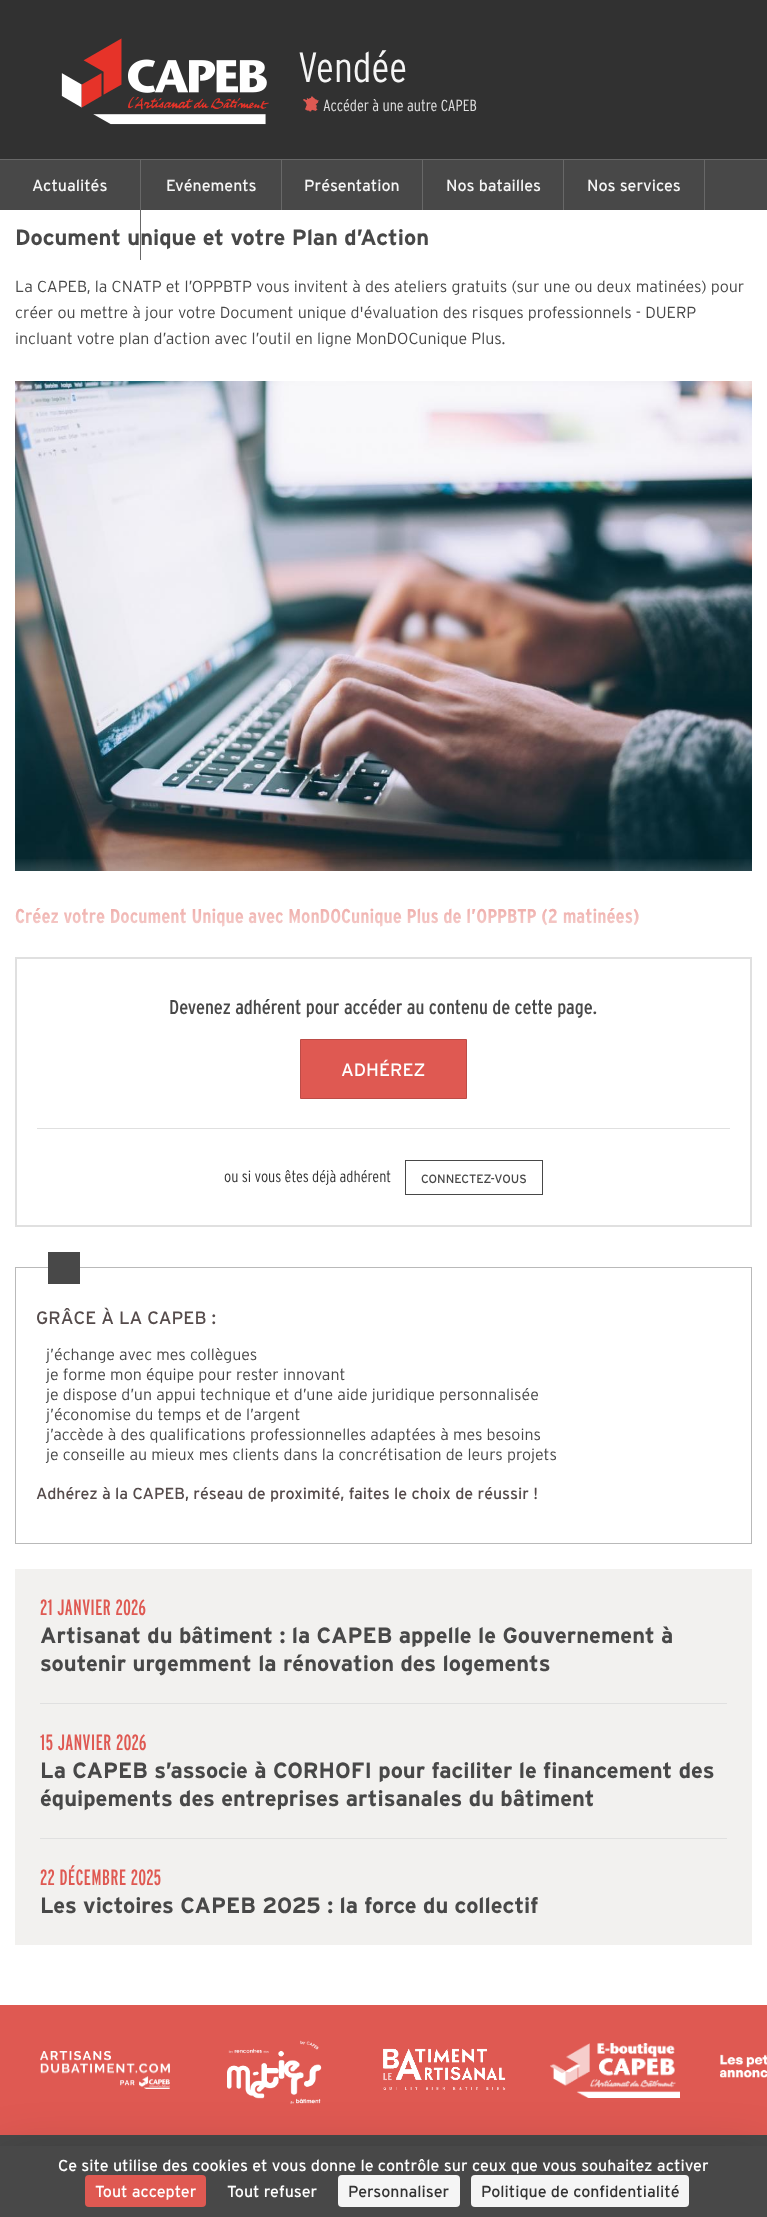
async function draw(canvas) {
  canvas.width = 767
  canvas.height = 2217
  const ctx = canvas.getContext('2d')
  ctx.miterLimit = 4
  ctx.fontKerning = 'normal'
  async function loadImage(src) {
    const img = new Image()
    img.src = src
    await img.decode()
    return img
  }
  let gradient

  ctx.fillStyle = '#fff'
  ctx.fillRect(0, 0, 767, 2217)
  ctx.fillStyle = '#313131'
  ctx.fillRect(0, 0, 767, 159)
  ctx.fillStyle = '#686868'
  ctx.fillRect(0, 159, 767, 1)
  ctx.drawImage(await loadImage('image0.png'), 61, 38, 208, 87)
  ctx.font = '300 42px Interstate'
  ctx.fillStyle = '#f5f5f5'
  ctx.fillText('Vendée', 298, 82)
  ctx.drawImage(await loadImage('image1.png'), 303, 96, 16, 16)
  ctx.font = '300 16px Interstate'
  ctx.fillStyle = '#e0e0e0'
  ctx.fillText('Accéder à une autre CAPEB', 323, 111)
  ctx.fillStyle = '#484848'
  ctx.fillRect(0, 160, 767, 50)
  ctx.font = 'bold 22px Interstate'
  ctx.fillText('Document unique et votre Plan d’Action', 15, 245)
  ctx.fillStyle = '#686868'
  ctx.fillRect(140, 160, 1, 100)
  ctx.font = '16px "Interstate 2"'
  ctx.fillStyle = '#f5f5f5'
  ctx.fillText('Actualités', 32, 191)
  ctx.fillStyle = '#686868'
  ctx.fillRect(281, 160, 1, 50)
  ctx.fillStyle = '#f5f5f5'
  ctx.fillText('Evénements', 166, 191)
  ctx.fillStyle = '#686868'
  ctx.fillRect(422, 160, 1, 50)
  ctx.fillStyle = '#f5f5f5'
  ctx.fillText('Présentation', 304, 191)
  ctx.fillStyle = '#686868'
  ctx.fillRect(563, 160, 1, 50)
  ctx.fillStyle = '#f5f5f5'
  ctx.fillText('Nos batailles', 446, 191)
  ctx.fillStyle = '#686868'
  ctx.fillRect(704, 160, 1, 50)
  ctx.fillStyle = '#f5f5f5'
  ctx.fillText('Nos services', 587, 191)
  ctx.font = '300 16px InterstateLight'
  ctx.fillStyle = '#484848'
  ctx.fillText('La CAPEB, la CNATP et l’OPPBTP vous invitent à des ateliers gratuits (sur une ou deux matinées) pour', 15, 292)
  ctx.fillText('créer ou mettre à jour votre Document unique d\'évaluation des risques professionnels - DUERP', 15, 318)
  ctx.fillText('incluant votre plan d’action avec l’outil en ligne MonDOCunique Plus.', 15, 344)
  ctx.drawImage(await loadImage('image2.png'), 15, 381, 737, 490)
  ctx.font = 'bold 20px "Interstate 2"'
  ctx.fillStyle = '#df5952'
  ctx.fillText('Créez votre Document Unique avec MonDOCunique Plus de l’OPPBTP (2 matinées)', 15, 923)
  ctx.strokeStyle = '#e0e0e0'
  ctx.lineWidth = 2
  ctx.strokeRect(16, 958, 735, 268)
  gradient = ctx.createLinearGradient(384, 857, 384, 957)
  gradient.addColorStop(0, '#ffffff00')
  gradient.addColorStop(1, '#fff')
  ctx.fillStyle = gradient
  ctx.fillRect(15, 859, 737, 68)
  ctx.font = '20px "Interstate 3"'
  ctx.fillStyle = '#484848'
  ctx.fillText('Devenez adhérent pour accéder au contenu de cette page.', 169, 1014)
  ctx.fillStyle = '#df5952'
  ctx.beginPath()
  ctx.rect(300.5, 1039.5, 166, 59)
  ctx.fill()
  ctx.strokeStyle = '#bc4c47'
  ctx.lineWidth = 1
  ctx.stroke()
  ctx.font = '18px "Interstate 2"'
  ctx.fillStyle = '#fff'
  ctx.fillText('ADHÉREZ', 341, 1076)
  ctx.fillStyle = '#e0e0e0'
  ctx.fillRect(37, 1128, 693, 1)
  ctx.font = '300 16px Interstate'
  ctx.fillStyle = '#333'
  ctx.fillText('ou si vous êtes déjà adhérent', 224, 1182)
  ctx.strokeStyle = '#484848'
  ctx.strokeRect(405.5, 1160.5, 137, 34)
  ctx.font = '12px "Interstate 2"'
  ctx.fillStyle = '#484848'
  ctx.fillText('CONNECTEZ-VOUS', 421, 1183)
  ctx.strokeStyle = '#b9b9b9'
  ctx.strokeRect(15.5, 1267.5, 736, 276)
  ctx.fillRect(48, 1252, 32, 32)
  ctx.font = '18px "Interstate 2"'
  ctx.fillStyle = '#554b4b'
  ctx.fillText('GRÂCE À LA CAPEB :', 36, 1324)
  ctx.font = '300 16px InterstateLight'
  ctx.fillStyle = '#484848'
  ctx.fillText('j’échange avec mes collègues', 46, 1360)
  ctx.fillText('je forme mon équipe pour rester innovant', 46, 1380)
  ctx.fillText('je dispose d’un appui technique et d’une aide juridique personnalisée', 46, 1400)
  ctx.fillText('j’économise du temps et de l’argent', 46, 1420)
  ctx.fillText('j’accède à des qualifications professionnelles adaptées à mes besoins', 46, 1440)
  ctx.fillText('je conseille au mieux mes clients dans la concrétisation de leurs projets', 46, 1460)
  ctx.font = '16px "Interstate 2"'
  ctx.fillStyle = '#554b4b'
  ctx.fillText('Adhérez à la CAPEB, réseau de proximité, faites le choix de réussir !', 36, 1499)
  ctx.fillStyle = '#f2f1ef'
  ctx.fillRect(15, 1569, 737, 376)
  ctx.fillStyle = '#e0e0e0'
  ctx.fillRect(40, 1703, 687, 1)
  ctx.letterSpacing = '0.25px'
  ctx.font = '22px Interstate'
  ctx.fillStyle = '#df5952'
  ctx.fillText('21 JANVIER 2026', 40, 1615)
  ctx.letterSpacing = '0px'
  ctx.font = 'bold 22px Interstate'
  ctx.fillStyle = '#484848'
  ctx.fillText('Artisanat du bâtiment : la CAPEB appelle le Gouvernement à', 40, 1643)
  ctx.fillText('soutenir urgemment la rénovation des logements', 40, 1671)
  ctx.fillStyle = '#e0e0e0'
  ctx.fillRect(40, 1838, 687, 1)
  ctx.letterSpacing = '0.25px'
  ctx.font = '22px Interstate'
  ctx.fillStyle = '#df5952'
  ctx.fillText('15 JANVIER 2026', 40, 1750)
  ctx.letterSpacing = '0px'
  ctx.font = 'bold 22px Interstate'
  ctx.fillStyle = '#484848'
  ctx.fillText('La CAPEB s’associe à CORHOFI pour faciliter le financement des', 40, 1778)
  ctx.fillText('équipements des entreprises artisanales du bâtiment', 40, 1806)
  ctx.letterSpacing = '0.25px'
  ctx.font = '22px Interstate'
  ctx.fillStyle = '#df5952'
  ctx.fillText('22 DÉCEMBRE 2025', 40, 1885)
  ctx.letterSpacing = '0px'
  ctx.font = 'bold 22px Interstate'
  ctx.fillStyle = '#484848'
  ctx.fillText('Les victoires CAPEB 2025 : la force du collectif', 40, 1913)
  ctx.fillStyle = '#df5952'
  ctx.fillRect(0, 2005, 767, 130)
  ctx.drawImage(await loadImage('image3.png'), 40, 2051, 130, 38)
  ctx.drawImage(await loadImage('image4.png'), 227, 2040, 95, 64)
  ctx.drawImage(await loadImage('image5.png'), 383, 2048, 123, 42)
  ctx.drawImage(await loadImage('image6.png'), 550, 2043, 130, 55)
  ctx.drawImage(await loadImage('image7.png'), 720, 2054, 47, 24)
  ctx.fillStyle = '#484848'
  ctx.fillRect(0, 2135, 767, 11)
  ctx.fillStyle = '#00000040'
  ctx.filter = 'blur(30px)'
  ctx.beginPath()
  ctx.rect(0, 2166, 767, 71)
  ctx.fill()
  ctx.filter = 'none'
  ctx.fillStyle = '#484848'
  ctx.fillRect(0, 2146, 767, 71)
  ctx.font = '16px "Interstate 2"'
  ctx.fillStyle = '#fff'
  ctx.fillText('Ce site utilise des cookies et vous donne le contrôle sur ceux que vous souhaitez activer', 58, 2171)
  ctx.fillStyle = '#df5952'
  ctx.beginPath()
  ctx.roundRect(85, 2175, 121, 32, 4)
  ctx.fill()
  ctx.fillStyle = '#fff'
  ctx.fillText('Tout accepter', 95, 2197)
  ctx.fillText('Tout refuser', 227, 2197)
  ctx.fillStyle = '#f5f5f5'
  ctx.beginPath()
  ctx.roundRect(338, 2175, 122, 32, 4)
  ctx.fill()
  ctx.fillStyle = '#333'
  ctx.fillText('Personnaliser', 348, 2197)
  ctx.fillStyle = '#f5f5f5'
  ctx.beginPath()
  ctx.roundRect(471, 2175, 218, 32, 4)
  ctx.fill()
  ctx.fillStyle = '#333'
  ctx.fillText('Politique de confidentialité', 481, 2197)
}

draw(document.querySelector('canvas'))
